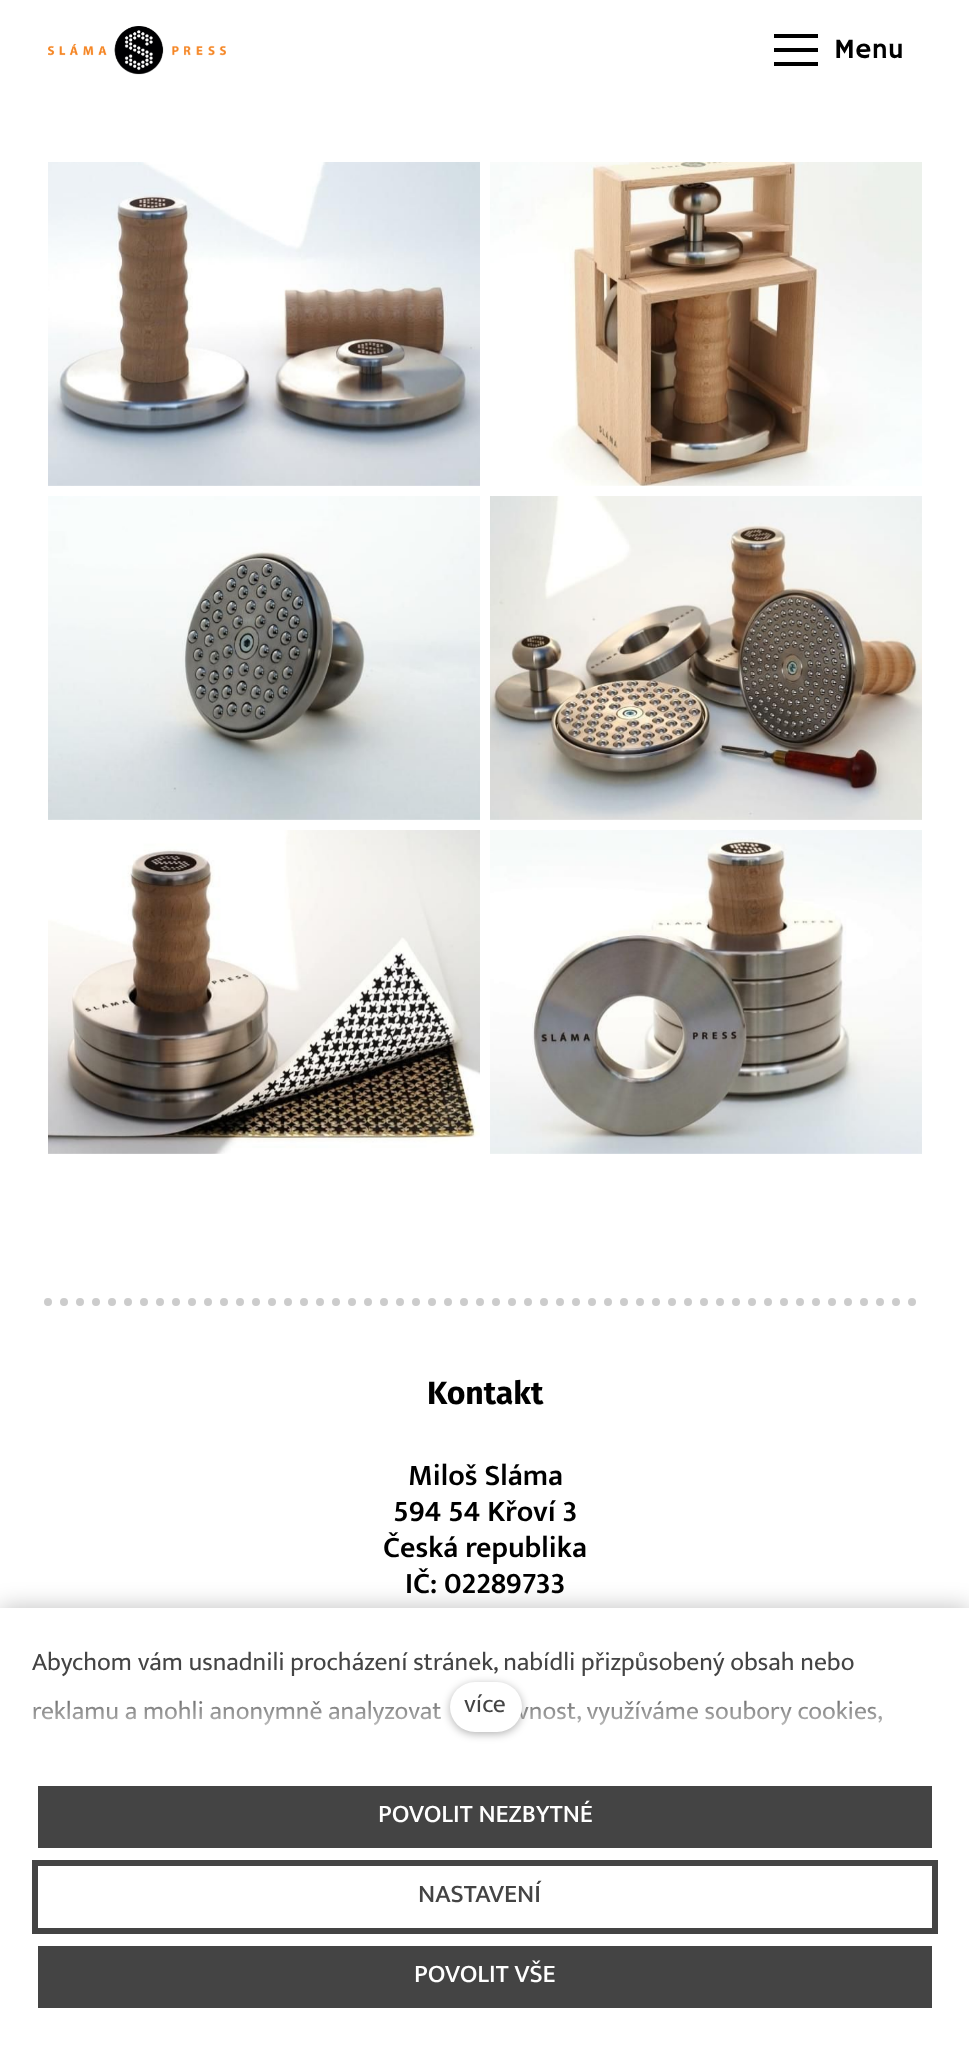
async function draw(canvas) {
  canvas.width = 969
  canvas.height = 2046
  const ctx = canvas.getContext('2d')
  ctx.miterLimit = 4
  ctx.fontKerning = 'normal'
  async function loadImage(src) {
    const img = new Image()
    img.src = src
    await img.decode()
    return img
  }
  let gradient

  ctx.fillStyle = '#fff'
  ctx.fillRect(0, 0, 969, 2046)
  ctx.drawImage(await loadImage('image0.png'), 48, 26, 178, 49)
  ctx.fillStyle = '#000'
  ctx.fillRect(774, 34, 44, 4)
  ctx.fillRect(774, 48, 44, 4)
  ctx.fillRect(774, 62, 44, 4)
  ctx.font = '28px Hammersmith One'
  ctx.fillText('Menu', 834, 58)
  ctx.drawImage(await loadImage('image1.png'), 48, 162, 432, 324)
  ctx.drawImage(await loadImage('image2.png'), 490, 162, 432, 324)
  ctx.drawImage(await loadImage('image3.png'), 48, 496, 432, 324)
  ctx.drawImage(await loadImage('image4.png'), 490, 496, 432, 324)
  ctx.drawImage(await loadImage('image5.png'), 48, 830, 432, 324)
  ctx.drawImage(await loadImage('image6.png'), 490, 830, 432, 324)
  ctx.beginPath()
  ctx.moveTo(48, 1302)
  ctx.lineTo(922, 1302)
  ctx.strokeStyle = '#ccc'
  ctx.lineWidth = 8
  ctx.lineCap = 'round'
  ctx.setLineDash([0, 16])
  ctx.stroke()
  ctx.font = 'bold 32px Fira Sans'
  ctx.fillText('Kontakt', 427, 1404)
  ctx.font = '600 30px Mukta'
  ctx.fillText('Miloš Sláma', 408, 1485)
  ctx.fillText('594 54 Křoví 3', 393, 1521)
  ctx.fillText('Česká republika', 383, 1557)
  ctx.fillText('IČ: 02289733', 405, 1593)
  ctx.fillStyle = '#00000040'
  ctx.filter = 'blur(12px)'
  ctx.beginPath()
  ctx.rect(0, 1608, 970, 438)
  ctx.fill()
  ctx.filter = 'none'
  ctx.fillStyle = '#fff'
  ctx.fillRect(0, 1608, 969, 438)
  ctx.font = '25.6px Mukta'
  ctx.fillStyle = '#444'
  ctx.fillText('Abychom vám usnadnili procházení stránek, nabídli přizpůsobený obsah nebo', 32, 1670)
  ctx.fillText('reklamu a mohli anonymně analyzovat', 32, 1719)
  ctx.fillText('vnost, využíváme soubory cookies,', 517, 1719)
  gradient = ctx.createLinearGradient(485, 1748, 485, 1686)
  gradient.addColorStop(0, '#fff')
  gradient.addColorStop(1, '#ffffff00')
  ctx.fillStyle = gradient
  ctx.fillRect(33, 1700, 849, 26)
  ctx.fillStyle = '#0000004d'
  ctx.filter = 'blur(4px)'
  ctx.beginPath()
  ctx.roundRect(450, 1684, 72, 50, 25)
  ctx.fill()
  ctx.filter = 'none'
  ctx.fillStyle = '#fff'
  ctx.beginPath()
  ctx.roundRect(450, 1682, 72, 50, 25)
  ctx.fill()
  ctx.fillStyle = '#444'
  ctx.fillText('více', 464, 1712)
  ctx.fillRect(38, 1786, 894, 62)
  ctx.font = '500 25.6px Mukta'
  ctx.fillStyle = '#fff'
  ctx.fillText('POVOLIT NEZBYTNÉ', 378, 1822)
  ctx.strokeStyle = '#444'
  ctx.lineWidth = 6
  ctx.setLineDash([])
  ctx.strokeRect(35, 1863, 900, 68)
  ctx.fillStyle = '#444'
  ctx.fillText('NASTAVENÍ', 418, 1902)
  ctx.fillRect(38, 1946, 894, 62)
  ctx.fillStyle = '#fff'
  ctx.fillText('POVOLIT VŠE', 414, 1982)
}

draw(document.querySelector('canvas'))
